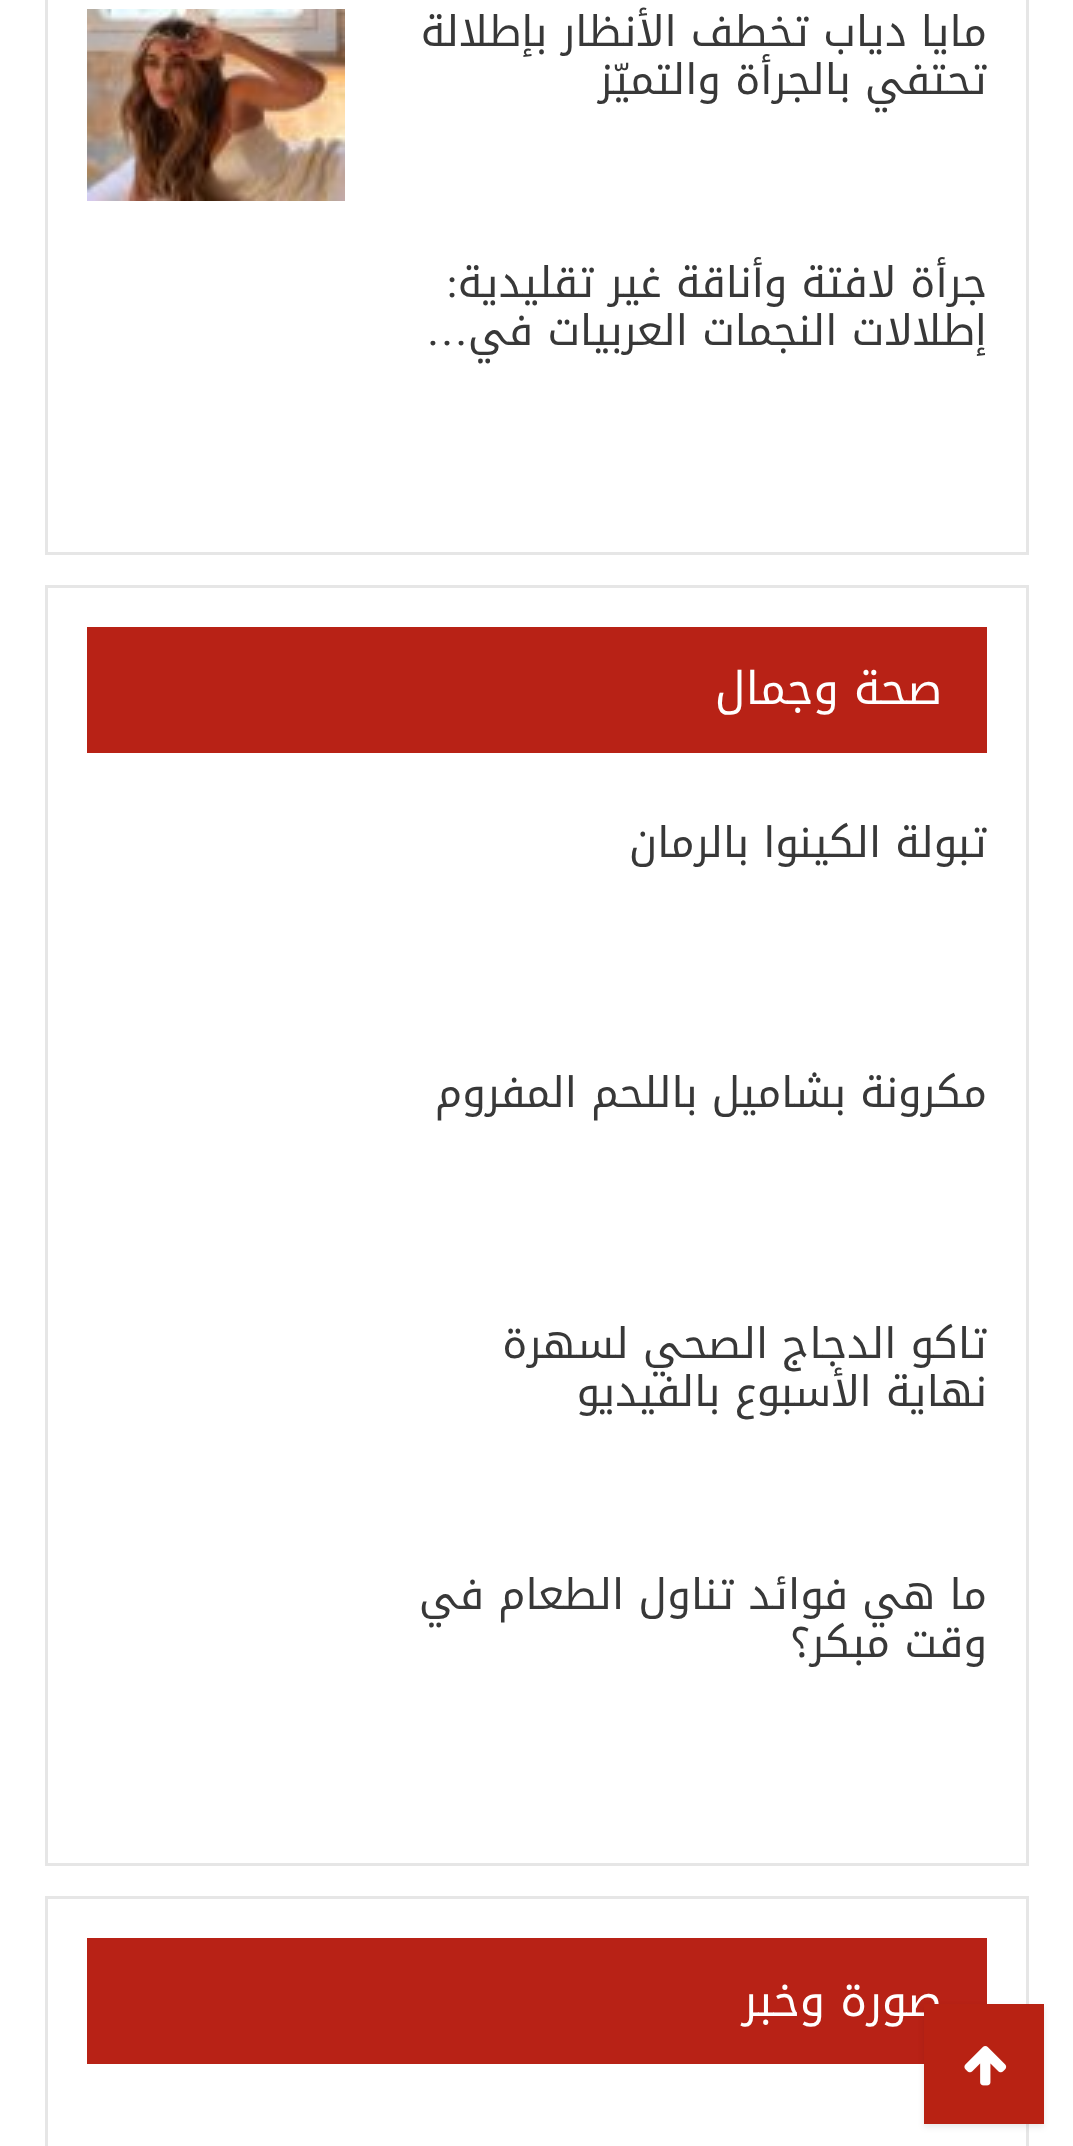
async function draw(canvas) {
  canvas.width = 1073
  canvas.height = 2146
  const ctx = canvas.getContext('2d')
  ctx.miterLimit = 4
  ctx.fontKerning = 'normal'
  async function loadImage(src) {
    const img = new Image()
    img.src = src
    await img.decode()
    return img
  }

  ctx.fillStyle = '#fff'
  ctx.fillRect(0, 0, 1073, 2146)
  ctx.strokeStyle = '#e6e6e6'
  ctx.lineWidth = 3
  ctx.strokeRect(46.5, -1.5, 981, 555)
  ctx.direction = 'rtl'
  ctx.font = '42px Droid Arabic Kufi'
  ctx.fillStyle = '#383838'
  ctx.fillText('مايا دياب تخطف الأنظار بإطلالة', 987, 46)
  ctx.fillText('تحتفي بالجرأة والتميّز', 987, 94)
  ctx.drawImage(await loadImage('image0.png'), 87, 9, 258, 192)
  ctx.fillText('جرأة لافتة وأناقة غير تقليدية', 987, 297)
  ctx.font = '42px Liberation Serif'
  ctx.fillText(':', 458, 297)
  ctx.font = '42px Droid Arabic Kufi'
  ctx.fillText('إطلالات النجمات العربيات في', 987, 345)
  ctx.font = '42px Liberation Serif'
  ctx.fillText('…', 468, 345)
  ctx.strokeRect(46.5, 586.5, 981, 1278)
  ctx.fillStyle = '#b82216'
  ctx.fillRect(87, 627, 900, 126)
  ctx.font = '45px Droid Arabic Kufi'
  ctx.fillStyle = '#fff'
  ctx.fillText('صحة وجمال', 942, 704)
  ctx.font = '42px Droid Arabic Kufi'
  ctx.fillStyle = '#383838'
  ctx.fillText('تبولة الكينوا بالرمان', 987, 857)
  ctx.fillText('مكرونة بشاميل باللحم المفروم', 987, 1107)
  ctx.fillText('تاكو الدجاج الصحي لسهرة', 987, 1358)
  ctx.fillText('نهاية الأسبوع بالفيديو', 987, 1406)
  ctx.fillText('ما هي فوائد تناول الطعام في', 987, 1609)
  ctx.fillText('وقت مبكر؟', 987, 1657)
  ctx.strokeRect(46.5, 1897.5, 981, 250)
  ctx.fillStyle = '#b82216'
  ctx.fillRect(87, 1938, 900, 126)
  ctx.font = '45px Droid Arabic Kufi'
  ctx.fillStyle = '#fff'
  ctx.fillText('صورة وخبر', 942, 2016)
  ctx.fillStyle = '#00000017'
  ctx.filter = 'blur(3px)'
  ctx.beginPath()
  ctx.rect(924, 2007, 120, 120)
  ctx.fill()
  ctx.filter = 'none'
  ctx.fillStyle = '#b82213'
  ctx.fillRect(924, 2004, 120, 120)
  ctx.drawImage(await loadImage('image1.png'), 964, 2046, 43, 40)
}

draw(document.querySelector('canvas'))
